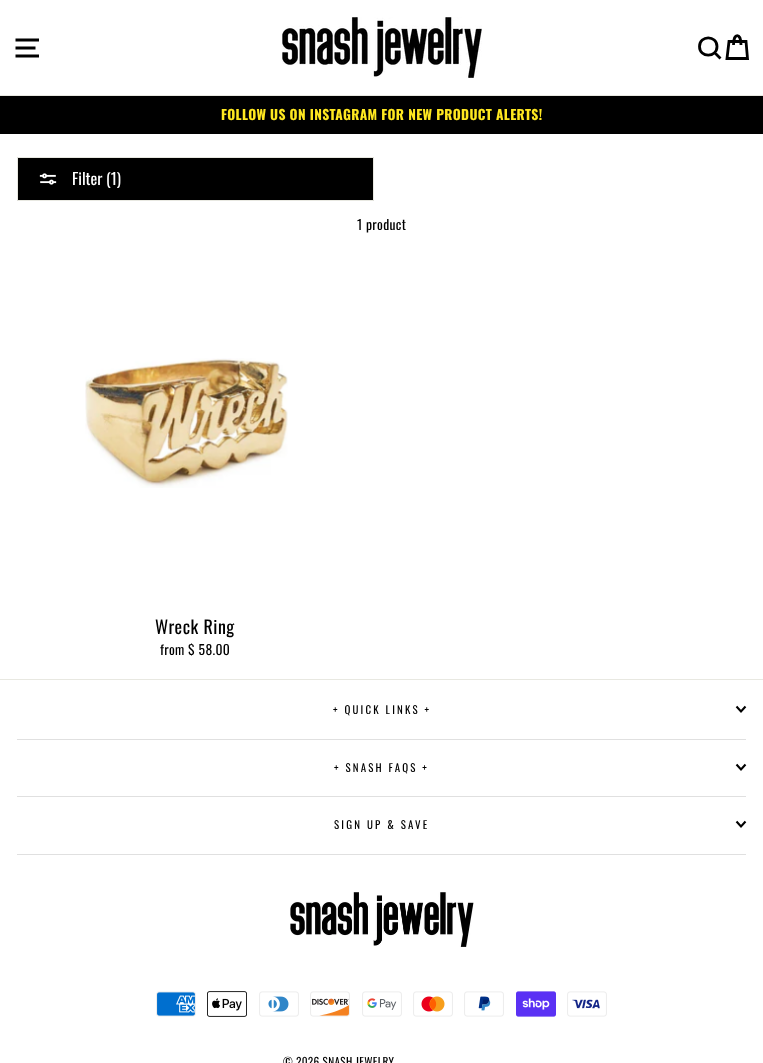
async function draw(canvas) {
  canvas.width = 763
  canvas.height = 1063
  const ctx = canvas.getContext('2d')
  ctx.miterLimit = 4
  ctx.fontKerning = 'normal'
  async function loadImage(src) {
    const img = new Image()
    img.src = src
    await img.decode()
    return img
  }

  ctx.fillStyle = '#fff'
  ctx.fillRect(0, 0, 763, 1063)
  ctx.fillStyle = '#e8e8e1'
  ctx.fillRect(0, 95, 763, 1)
  ctx.beginPath()
  ctx.moveTo(15.5, 40)
  ctx.lineTo(39, 40)
  ctx.moveTo(15.5, 48)
  ctx.lineTo(35.5, 48)
  ctx.moveTo(15.5, 56)
  ctx.lineTo(39, 56)
  ctx.strokeStyle = '#000'
  ctx.lineWidth = 2.8
  ctx.stroke()
  ctx.drawImage(await loadImage('image0.png'), 282, 17, 200, 61)
  ctx.beginPath()
  ctx.moveTo(717, 46.5)
  ctx.bezierCurveTo(717, 58, 699.5, 58, 699.5, 46.5)
  ctx.bezierCurveTo(699.5, 35, 717, 35, 717, 46.5)
  ctx.closePath()
  ctx.moveTo(720.5, 58.5)
  ctx.lineTo(714.5, 52.5)
  ctx.moveTo(733.5, 45)
  ctx.bezierCurveTo(733.5, 32.5, 741, 32.5, 741, 45)
  ctx.moveTo(729, 41.5)
  ctx.lineTo(746, 41.5)
  ctx.lineTo(747.5, 58.5)
  ctx.lineTo(727, 58.5)
  ctx.closePath()
  ctx.stroke()
  ctx.fillStyle = '#000'
  ctx.fillRect(0, 96, 763, 38)
  ctx.letterSpacing = '0.35px'
  ctx.font = 'bold 13.6px Oswald'
  ctx.fillStyle = '#ffe820'
  ctx.fillText('FOLLOW US ON INSTAGRAM FOR NEW PRODUCT ALERTS!', 221, 120)
  ctx.fillStyle = '#000'
  ctx.beginPath()
  ctx.rect(17.5, 157.5, 356, 43)
  ctx.fill()
  ctx.strokeStyle = '#e8e8e1'
  ctx.lineWidth = 1
  ctx.stroke()
  ctx.drawImage(await loadImage('image1.png'), 39, 173, 18, 12)
  ctx.letterSpacing = '0px'
  ctx.font = '16px Oswald'
  ctx.fillStyle = '#fff'
  ctx.fillText('Filter (1)', 72, 185)
  ctx.letterSpacing = '0.35px'
  ctx.font = '13.6px Oswald'
  ctx.fillStyle = '#000'
  ctx.fillText('1 product', 357, 230)
  ctx.drawImage(await loadImage('image2.png'), 85, 358, 203, 130)
  ctx.letterSpacing = '0.5px'
  ctx.font = '18px Oswald'
  ctx.fillText('Wreck Ring', 155, 634)
  ctx.letterSpacing = '0.35px'
  ctx.font = '13.6px Oswald'
  ctx.fillText('from $ 58.00', 160, 655)
  ctx.fillStyle = '#e8e8e1'
  ctx.fillRect(0, 679, 763, 1)
  ctx.letterSpacing = '2.2px'
  ctx.font = '10.9px Oswald'
  ctx.fillStyle = '#000'
  ctx.fillText('+ QUICK LINKS +', 333, 714)
  ctx.beginPath()
  ctx.moveTo(736.5, 706.5)
  ctx.lineTo(741, 711.5)
  ctx.lineTo(745.5, 706.5)
  ctx.strokeStyle = '#000'
  ctx.lineWidth = 2.1
  ctx.stroke()
  ctx.fillStyle = '#e0e0e0'
  ctx.fillRect(17, 739, 729, 1)
  ctx.fillStyle = '#000'
  ctx.fillText('+ SNASH FAQS +', 334, 772)
  ctx.beginPath()
  ctx.moveTo(736.5, 764.5)
  ctx.lineTo(741, 769.5)
  ctx.lineTo(745.5, 764.5)
  ctx.stroke()
  ctx.fillStyle = '#e0e0e0'
  ctx.fillRect(17, 796, 729, 1)
  ctx.fillStyle = '#000'
  ctx.fillText('SIGN UP & SAVE', 334, 829)
  ctx.beginPath()
  ctx.moveTo(736.5, 821.5)
  ctx.lineTo(741, 826.5)
  ctx.lineTo(745.5, 821.5)
  ctx.stroke()
  ctx.fillStyle = '#e0e0e0'
  ctx.fillRect(17, 854, 729, 1)
  ctx.drawImage(await loadImage('image3.png'), 290, 892, 184, 55)
  ctx.drawImage(await loadImage('image4.png'), 156, 991, 40, 26)
  ctx.drawImage(await loadImage('image5.png'), 207, 991, 40, 26)
  ctx.drawImage(await loadImage('image6.png'), 259, 991, 40, 26)
  ctx.drawImage(await loadImage('image7.png'), 310, 991, 40, 26)
  ctx.drawImage(await loadImage('image8.png'), 362, 991, 40, 26)
  ctx.drawImage(await loadImage('image9.png'), 413, 991, 40, 26)
  ctx.drawImage(await loadImage('image10.png'), 464, 991, 40, 26)
  ctx.drawImage(await loadImage('image11.png'), 516, 991, 40, 26)
  ctx.drawImage(await loadImage('image12.png'), 567, 991, 40, 26)
  ctx.letterSpacing = '0.35px'
  ctx.font = '11.25px Oswald'
  ctx.fillStyle = '#000'
  ctx.fillText('© 2026 SNASH JEWELRY', 283, 1066)
}

draw(document.querySelector('canvas'))
